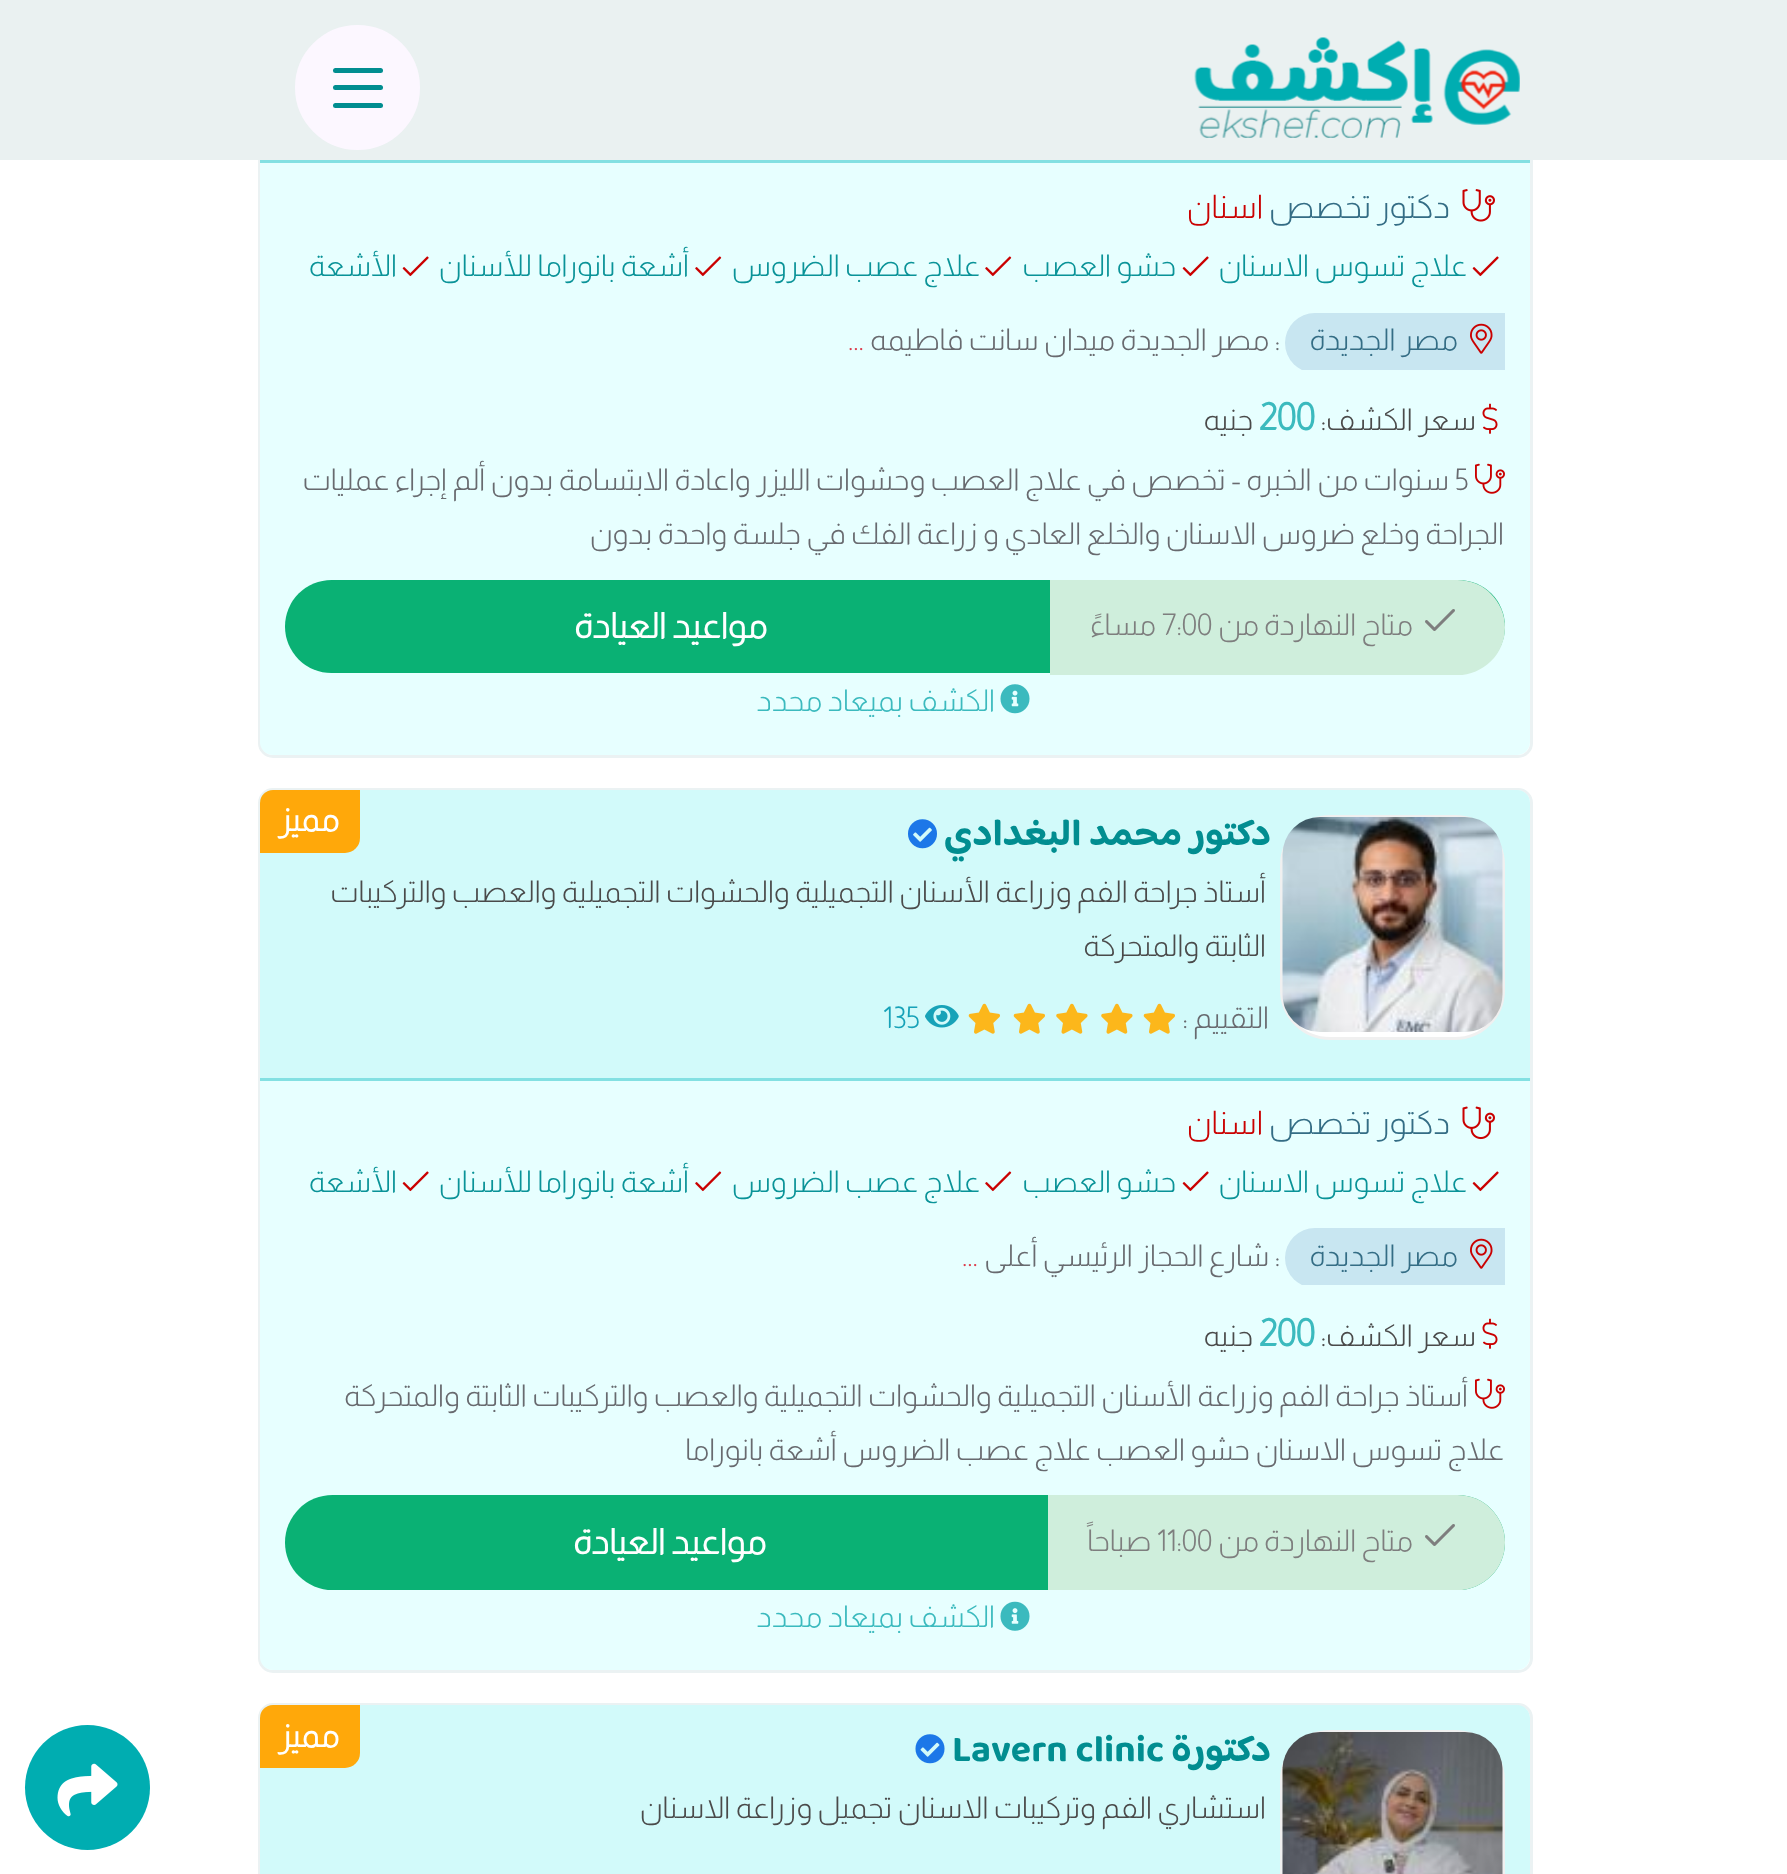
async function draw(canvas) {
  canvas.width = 1787
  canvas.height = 1874
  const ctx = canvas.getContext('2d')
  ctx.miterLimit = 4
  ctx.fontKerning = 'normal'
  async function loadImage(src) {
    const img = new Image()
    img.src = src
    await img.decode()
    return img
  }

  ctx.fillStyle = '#fff'
  ctx.fillRect(0, 0, 1787, 1874)
  ctx.beginPath()
  ctx.roundRect(259.5, -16.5, 1272, 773, 13.5)
  ctx.strokeStyle = '#ebf2f3'
  ctx.lineWidth = 3
  ctx.stroke()
  ctx.fillStyle = '#e7ffff'
  ctx.beginPath()
  ctx.roundRect(260, -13, 1270, 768, 13)
  ctx.fill()
  ctx.fillStyle = '#eaf1f1'
  ctx.fillRect(0, 0, 1787, 160)
  ctx.drawImage(await loadImage('image0.png'), 1194, 37, 326, 101)
  ctx.fillStyle = '#fcf7ff'
  ctx.beginPath()
  ctx.arc(357.5, 87.5, 61, 0, 2 * Math.PI)
  ctx.fill()
  ctx.strokeStyle = '#fcf7ff'
  ctx.stroke()
  ctx.fillStyle = '#018d90'
  ctx.beginPath()
  ctx.roundRect(333, 68, 50, 5, 2.5)
  ctx.fill()
  ctx.beginPath()
  ctx.roundRect(333, 85, 50, 5, 2.5)
  ctx.fill()
  ctx.beginPath()
  ctx.roundRect(333, 103, 50, 5, 2.5)
  ctx.fill()
  ctx.fillStyle = '#83e0e2'
  ctx.fillRect(260, 160, 1270, 3)
  ctx.drawImage(await loadImage('image1.png'), 1462, 189, 33, 33)
  ctx.direction = 'rtl'
  ctx.font = '300 32.5px Almarai'
  ctx.fillStyle = '#346d85'
  ctx.fillText('دكتور تخصص', 1450, 218)
  ctx.fillStyle = '#ca0000'
  ctx.fillText('اسنان', 1263, 218)
  ctx.drawImage(await loadImage('image2.png'), 1472, 256, 27, 21)
  ctx.font = '300 30px Almarai'
  ctx.fillStyle = '#0a9398'
  ctx.fillText('علاج تسوس الاسنان', 1467, 276)
  ctx.drawImage(await loadImage('image2.png'), 1182, 256, 27, 21)
  ctx.fillText('حشو العصب', 1176, 276)
  ctx.drawImage(await loadImage('image3.png'), 985, 256, 27, 21)
  ctx.fillText('علاج عصب الضروس', 980, 276)
  ctx.drawImage(await loadImage('image3.png'), 695, 256, 27, 21)
  ctx.fillText('أشعة بانوراما للأسنان', 689, 276)
  ctx.drawImage(await loadImage('image2.png'), 402, 256, 27, 21)
  ctx.fillText('الأشعة', 397, 276)
  ctx.save()
  ctx.beginPath()
  ctx.rect(285, 308, 1220, 62)
  ctx.clip()
  ctx.fillStyle = '#c8e6f1'
  ctx.beginPath()
  ctx.roundRect(1285, 313, 245, 60, [30, 0, 0, 30])
  ctx.fill()
  ctx.restore()
  ctx.drawImage(await loadImage('image4.png'), 1470, 323, 23, 31)
  ctx.fillStyle = '#346d85'
  ctx.fillText('مصر الجديدة', 1458, 350)
  ctx.fillStyle = '#686a6f'
  ctx.fillText(': مصر الجديدة ميدان سانت فاطيمه', 1280, 350)
  ctx.direction = 'ltr'
  ctx.fillStyle = '#dc3545'
  ctx.fillText('...', 848, 350)
  ctx.drawImage(await loadImage('image5.png'), 1482, 403, 16, 31)
  ctx.direction = 'rtl'
  ctx.fillStyle = '#4a4a4a'
  ctx.fillText('سعر الكشف:', 1476, 430)
  ctx.direction = 'ltr'
  ctx.font = 'bold 37.5px Almarai'
  ctx.fillStyle = '#3bbabe'
  ctx.fillText('200', 1259, 430)
  ctx.direction = 'rtl'
  ctx.font = '300 30px Almarai'
  ctx.fillStyle = '#4a4a4a'
  ctx.fillText('جنيه', 1253, 430)
  ctx.drawImage(await loadImage('image6.png'), 1475, 463, 30, 31)
  ctx.direction = 'ltr'
  ctx.fillStyle = '#686a6f'
  ctx.fillText('5', 1455, 490)
  ctx.direction = 'rtl'
  ctx.fillText('سنوات من الخبره - تخصص في علاج العصب وحشوات الليزر واعادة الابتسامة بدون ألم إجراء عمليات', 1449, 490)
  ctx.fillText('الجراحة وخلع ضروس الاسنان والخلع العادي و زراعة الفك في جلسة واحدة بدون', 1504, 544)
  ctx.fillStyle = '#0ab174'
  ctx.beginPath()
  ctx.roundRect(285, 580, 1220, 93, 46.5)
  ctx.fill()
  ctx.fillStyle = '#cfeedc'
  ctx.beginPath()
  ctx.roundRect(1050, 580, 455, 95, [0, 47.5, 47.5, 0])
  ctx.fill()
  ctx.drawImage(await loadImage('image7.png'), 1425, 609, 30, 22)
  ctx.fillStyle = '#7e7e7e'
  ctx.fillText('متاح النهاردة', 1413, 635)
  ctx.fillText('من', 1259, 635)
  ctx.direction = 'ltr'
  ctx.fillText('7:00', 1162, 635)
  ctx.direction = 'rtl'
  ctx.fillText('مساءً', 1156, 635)
  ctx.font = 'bold 35px Almarai'
  ctx.fillStyle = '#fff'
  ctx.fillText('مواعيد العيادة', 767, 638)
  ctx.drawImage(await loadImage('image8.png'), 1000, 684, 30, 30)
  ctx.font = '300 30px Almarai'
  ctx.fillStyle = '#3bbabe'
  ctx.fillText('الكشف بميعاد محدد', 995, 711)
  ctx.beginPath()
  ctx.roundRect(259.5, 789.5, 1272, 882, 13.5)
  ctx.strokeStyle = '#ebf2f3'
  ctx.stroke()
  ctx.fillStyle = '#e7ffff'
  ctx.beginPath()
  ctx.roundRect(260, 790, 1270, 880, 13)
  ctx.fill()
  ctx.fillStyle = '#d2fafa'
  ctx.beginPath()
  ctx.roundRect(260, 790, 1270, 290, [13, 13, 0, 0])
  ctx.fill()
  ctx.fillStyle = '#83e0e2'
  ctx.fillRect(260, 1078, 1270, 3)
  ctx.fillStyle = '#fff'
  ctx.beginPath()
  ctx.roundRect(1281.5, 816.5, 222, 222, 48.5)
  ctx.fill()
  ctx.strokeStyle = '#f0f0f0'
  ctx.stroke()
  ctx.drawImage(await loadImage('image9.png'), 1282, 817, 221, 215)
  ctx.font = 'bold 37.5px "Baloo Bhaijaan 2"'
  ctx.fillStyle = '#018d90'
  ctx.fillText('دكتور محمد البغدادي', 1271, 845)
  ctx.drawImage(await loadImage('image10.png'), 908, 819, 29, 30)
  ctx.font = '300 30px Almarai'
  ctx.fillStyle = '#4a4a4a'
  ctx.fillText('أستاذ جراحة الفم وزراعة الأسنان التجميلية والحشوات التجميلية والعصب والتركيبات', 1266, 902)
  ctx.fillText('الثابتة والمتحركة', 1266, 956)
  ctx.fillStyle = '#686a6f'
  ctx.fillText('التقييم :', 1269, 1028)
  ctx.drawImage(await loadImage('image11.png'), 1143, 1003, 32, 31)
  ctx.drawImage(await loadImage('image12.png'), 1101, 1003, 32, 31)
  ctx.drawImage(await loadImage('image12.png'), 1056, 1003, 32, 31)
  ctx.drawImage(await loadImage('image11.png'), 1013, 1003, 32, 31)
  ctx.drawImage(await loadImage('image11.png'), 968, 1003, 32, 31)
  ctx.drawImage(await loadImage('image13.png'), 925, 1005, 34, 23)
  ctx.direction = 'ltr'
  ctx.fillStyle = '#17a2b8'
  ctx.fillText('135', 883, 1028)
  ctx.fillStyle = '#ffa80a'
  ctx.beginPath()
  ctx.roundRect(260, 790, 100, 63, [13, 0, 15, 0])
  ctx.fill()
  ctx.direction = 'rtl'
  ctx.font = 'bold 32.5px Almarai'
  ctx.fillStyle = '#fff'
  ctx.fillText('مميز', 339, 831)
  ctx.drawImage(await loadImage('image14.png'), 1462, 1106, 33, 34)
  ctx.font = '300 32.5px Almarai'
  ctx.fillStyle = '#346d85'
  ctx.fillText('دكتور تخصص', 1450, 1134)
  ctx.fillStyle = '#ca0000'
  ctx.fillText('اسنان', 1263, 1134)
  ctx.drawImage(await loadImage('image2.png'), 1472, 1171, 27, 21)
  ctx.font = '300 30px Almarai'
  ctx.fillStyle = '#0a9398'
  ctx.fillText('علاج تسوس الاسنان', 1467, 1192)
  ctx.drawImage(await loadImage('image2.png'), 1182, 1171, 27, 21)
  ctx.fillText('حشو العصب', 1176, 1192)
  ctx.drawImage(await loadImage('image3.png'), 985, 1171, 27, 21)
  ctx.fillText('علاج عصب الضروس', 980, 1192)
  ctx.drawImage(await loadImage('image3.png'), 695, 1171, 27, 21)
  ctx.fillText('أشعة بانوراما للأسنان', 689, 1192)
  ctx.drawImage(await loadImage('image2.png'), 402, 1171, 27, 21)
  ctx.fillText('الأشعة', 397, 1192)
  ctx.save()
  ctx.beginPath()
  ctx.rect(285, 1223, 1220, 62)
  ctx.clip()
  ctx.fillStyle = '#c8e6f1'
  ctx.beginPath()
  ctx.roundRect(1285, 1228, 245, 60, [30, 0, 0, 30])
  ctx.fill()
  ctx.restore()
  ctx.drawImage(await loadImage('image4.png'), 1470, 1238, 23, 31)
  ctx.fillStyle = '#346d85'
  ctx.fillText('مصر الجديدة', 1458, 1266)
  ctx.fillStyle = '#686a6f'
  ctx.fillText(': شارع الحجاز الرئيسي أعلى', 1280, 1266)
  ctx.direction = 'ltr'
  ctx.fillStyle = '#dc3545'
  ctx.fillText('...', 962, 1266)
  ctx.drawImage(await loadImage('image5.png'), 1482, 1318, 16, 31)
  ctx.direction = 'rtl'
  ctx.fillStyle = '#4a4a4a'
  ctx.fillText('سعر الكشف:', 1476, 1346)
  ctx.direction = 'ltr'
  ctx.font = 'bold 37.5px Almarai'
  ctx.fillStyle = '#3bbabe'
  ctx.fillText('200', 1259, 1346)
  ctx.direction = 'rtl'
  ctx.font = '300 30px Almarai'
  ctx.fillStyle = '#4a4a4a'
  ctx.fillText('جنيه', 1253, 1346)
  ctx.drawImage(await loadImage('image6.png'), 1475, 1378, 30, 31)
  ctx.fillStyle = '#686a6f'
  ctx.fillText('أستاذ جراحة الفم وزراعة الأسنان التجميلية والحشوات التجميلية والعصب والتركيبات الثابتة والمتحركة', 1468, 1406)
  ctx.fillText('علاج تسوس الاسنان حشو العصب علاج عصب الضروس أشعة بانوراما', 1504, 1460)
  ctx.fillStyle = '#0ab174'
  ctx.beginPath()
  ctx.roundRect(285, 1495, 1220, 95, 47.5)
  ctx.fill()
  ctx.fillStyle = '#cfeedc'
  ctx.beginPath()
  ctx.roundRect(1048, 1495, 457, 95, [0, 47.5, 47.5, 0])
  ctx.fill()
  ctx.drawImage(await loadImage('image7.png'), 1425, 1524, 30, 22)
  ctx.fillStyle = '#7e7e7e'
  ctx.fillText('متاح النهاردة', 1413, 1551)
  ctx.fillText('من', 1259, 1551)
  ctx.direction = 'ltr'
  ctx.fillText('11:00', 1157, 1551)
  ctx.direction = 'rtl'
  ctx.fillText('صباحاً', 1151, 1551)
  ctx.font = 'bold 35px Almarai'
  ctx.fillStyle = '#fff'
  ctx.fillText('مواعيد العيادة', 766, 1554)
  ctx.drawImage(await loadImage('image15.png'), 1000, 1601, 30, 30)
  ctx.font = '300 30px Almarai'
  ctx.fillStyle = '#3bbabe'
  ctx.fillText('الكشف بميعاد محدد', 995, 1627)
  ctx.beginPath()
  ctx.roundRect(259.5, 1704.5, 1272, 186, 13.5)
  ctx.strokeStyle = '#ebf2f3'
  ctx.stroke()
  ctx.fillStyle = '#d2fafa'
  ctx.beginPath()
  ctx.moveTo(273, 1705)
  ctx.lineTo(1517, 1705)
  ctx.bezierCurveTo(1524, 1705, 1530, 1711, 1530, 1718)
  ctx.lineTo(1530, 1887)
  ctx.lineTo(260, 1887)
  ctx.lineTo(260, 1718)
  ctx.bezierCurveTo(260, 1711, 266, 1705, 273, 1705)
  ctx.closePath()
  ctx.fill()
  ctx.beginPath()
  ctx.roundRect(1281.5, 1731.5, 222, 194, 48.5)
  ctx.strokeStyle = '#f0f0f0'
  ctx.stroke()
  ctx.drawImage(await loadImage('image16.png'), 1282, 1732, 221, 142)
  ctx.font = 'bold 37.5px "Baloo Bhaijaan 2"'
  ctx.fillStyle = '#018d90'
  ctx.fillText('دكتورة', 1271, 1761)
  ctx.direction = 'ltr'
  ctx.fillText('Lavern clinic', 952, 1761)
  ctx.drawImage(await loadImage('image17.png'), 915, 1734, 30, 30)
  ctx.direction = 'rtl'
  ctx.font = '300 30px Almarai'
  ctx.fillStyle = '#4a4a4a'
  ctx.fillText('استشاري الفم وتركيبات الاسنان تجميل وزراعة الاسنان', 1266, 1818)
  ctx.fillStyle = '#ffa80a'
  ctx.beginPath()
  ctx.roundRect(260, 1705, 100, 63, [13, 0, 15, 0])
  ctx.fill()
  ctx.font = 'bold 32.5px Almarai'
  ctx.fillStyle = '#fff'
  ctx.fillText('مميز', 339, 1747)
  ctx.fillStyle = '#00adb1'
  ctx.beginPath()
  ctx.arc(87.5, 1787.5, 62.5, 0, 2 * Math.PI)
  ctx.fill()
  ctx.drawImage(await loadImage('image18.png'), 57, 1763, 61, 54)
}

draw(document.querySelector('canvas'))
